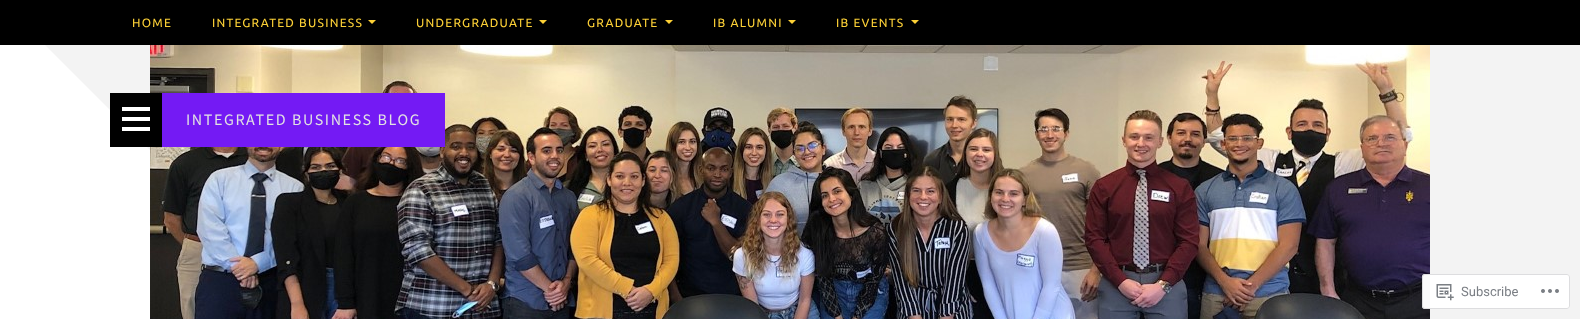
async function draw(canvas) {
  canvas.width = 1580
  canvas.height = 319
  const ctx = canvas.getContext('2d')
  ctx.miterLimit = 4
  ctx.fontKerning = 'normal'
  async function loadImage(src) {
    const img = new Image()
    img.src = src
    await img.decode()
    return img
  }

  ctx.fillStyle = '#fff'
  ctx.fillRect(0, 0, 1580, 319)
  ctx.fillStyle = '#f3f3f3'
  ctx.beginPath()
  ctx.moveTo(1580, 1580)
  ctx.lineTo(1580, 0)
  ctx.lineTo(0, 0)
  ctx.closePath()
  ctx.fill('evenodd')
  ctx.fillStyle = '#000'
  ctx.fillRect(0, 0, 1580, 45)
  ctx.letterSpacing = '1.25px'
  ctx.font = '12px Ubuntu'
  ctx.fillStyle = '#fcd036'
  ctx.fillText('HOME', 132, 27)
  ctx.fillText('INTEGRATED BUSINESS', 212, 27)
  ctx.beginPath()
  ctx.moveTo(368, 20)
  ctx.lineTo(376, 20)
  ctx.lineTo(372, 24)
  ctx.closePath()
  ctx.fill()
  ctx.fillText('UNDERGRADUATE', 416, 27)
  ctx.beginPath()
  ctx.moveTo(539, 20)
  ctx.lineTo(547, 20)
  ctx.lineTo(543, 24)
  ctx.closePath()
  ctx.fill()
  ctx.fillText('GRADUATE', 587, 27)
  ctx.beginPath()
  ctx.moveTo(665, 20)
  ctx.lineTo(673, 20)
  ctx.lineTo(669, 24)
  ctx.closePath()
  ctx.fill()
  ctx.fillText('IB ALUMNI', 713, 27)
  ctx.beginPath()
  ctx.moveTo(788, 20)
  ctx.lineTo(796, 20)
  ctx.lineTo(792, 24)
  ctx.closePath()
  ctx.fill()
  ctx.fillText('IB EVENTS', 836, 27)
  ctx.beginPath()
  ctx.moveTo(911, 20)
  ctx.lineTo(919, 20)
  ctx.lineTo(915, 24)
  ctx.closePath()
  ctx.fill()
  ctx.drawImage(await loadImage('image1.png'), 150, 45, 1280, 274)
  ctx.fillStyle = '#741af4'
  ctx.fillRect(162, 93, 283, 54)
  ctx.fillStyle = '#000'
  ctx.fillRect(110, 93, 52, 54)
  ctx.drawImage(await loadImage('image0.png'), 122, 107, 28, 24)
  ctx.letterSpacing = '1.6px'
  ctx.font = '16px Source Sans Pro'
  ctx.fillStyle = '#e2e2e2'
  ctx.fillText('INTEGRATED BUSINESS BLOG', 186, 125)
  ctx.fillStyle = '#fffffffa'
  ctx.beginPath()
  ctx.roundRect(1422, 274, 148, 35, 3)
  ctx.fill()
  ctx.beginPath()
  ctx.roundRect(1422.5, 274.5, 147, 34, 2.5)
  ctx.strokeStyle = '#dcdcdefa'
  ctx.stroke()
  ctx.drawImage(await loadImage('image2.png'), 1436, 284, 18, 17)
  ctx.letterSpacing = '0px'
  ctx.font = '13px Roboto'
  ctx.fillStyle = '#7a7e84'
  ctx.fillText('Subscribe', 1461, 296)
  ctx.drawImage(await loadImage('image3.png'), 1541, 289, 18, 4)
}

draw(document.querySelector('canvas'))
